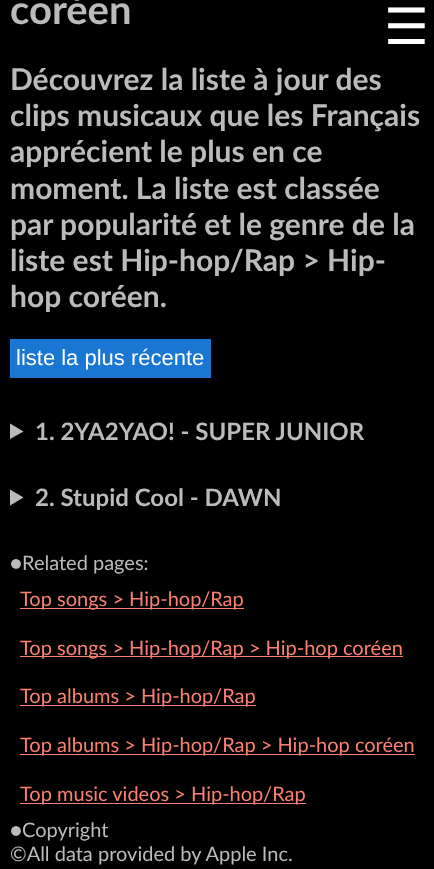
async function draw(canvas) {
  canvas.width = 434
  canvas.height = 869
  const ctx = canvas.getContext('2d')
  ctx.miterLimit = 4
  ctx.fontKerning = 'normal'

  ctx.fillStyle = '#000'
  ctx.fillRect(0, 0, 434, 869)
  ctx.font = 'bold 40px Lato'
  ctx.fillStyle = '#bbb'
  ctx.fillText('coréen', 10, 24)
  ctx.font = '50px DejaVu Sans'
  ctx.fillStyle = '#fff'
  ctx.fillText('☰', 384, 44)
  ctx.font = 'bold 30px Lato'
  ctx.fillStyle = '#bbb'
  ctx.fillText('Découvrez la liste à jour des', 10, 90)
  ctx.fillText('clips musicaux que les Français', 10, 126)
  ctx.fillText('apprécient le plus en ce', 10, 162)
  ctx.fillText('moment. La liste est classée', 10, 199)
  ctx.fillText('par popularité et le genre de la', 10, 235)
  ctx.fillText('liste est Hip-hop/Rap > Hip-', 10, 271)
  ctx.fillText('hop coréen.', 10, 307)
  ctx.fillStyle = '#1976d2'
  ctx.fillRect(10, 339, 201, 39)
  ctx.font = '22px Liberation Sans'
  ctx.fillStyle = '#fff'
  ctx.fillText('liste la plus récente', 16, 365)
  ctx.fillStyle = '#bbb'
  ctx.beginPath()
  ctx.moveTo(10, 423.5)
  ctx.lineTo(23.5, 431.5)
  ctx.lineTo(10, 439)
  ctx.closePath()
  ctx.fill()
  ctx.font = 'bold 24px Lato'
  ctx.fillText('1. 2YA2YAO! - SUPER JUNIOR', 35, 440)
  ctx.beginPath()
  ctx.moveTo(10, 489.5)
  ctx.lineTo(23.5, 497.5)
  ctx.lineTo(10, 505.5)
  ctx.closePath()
  ctx.fill()
  ctx.fillText('2. Stupid Cool - DAWN', 35, 506)
  ctx.font = '20px Lato'
  ctx.fillText('●Related pages:', 10, 570)
  ctx.fillStyle = '#fa8072'
  ctx.fillRect(20, 608, 224, 1)
  ctx.fillText('Top songs > Hip-hop/Rap', 20, 606)
  ctx.fillRect(20, 656, 383, 1)
  ctx.fillText('Top songs > Hip-hop/Rap > Hip-hop coréen', 20, 655)
  ctx.fillRect(20, 705, 236, 1)
  ctx.fillText('Top albums > Hip-hop/Rap', 20, 703)
  ctx.fillRect(20, 754, 395, 1)
  ctx.fillText('Top albums > Hip-hop/Rap > Hip-hop coréen', 20, 752)
  ctx.fillRect(20, 803, 286, 1)
  ctx.fillText('Top music videos > Hip-hop/Rap', 20, 801)
  ctx.fillStyle = '#bbb'
  ctx.fillText('●Copyright', 10, 837)
  ctx.fillText('©All data provided by Apple Inc.', 10, 861)
}

draw(document.querySelector('canvas'))
